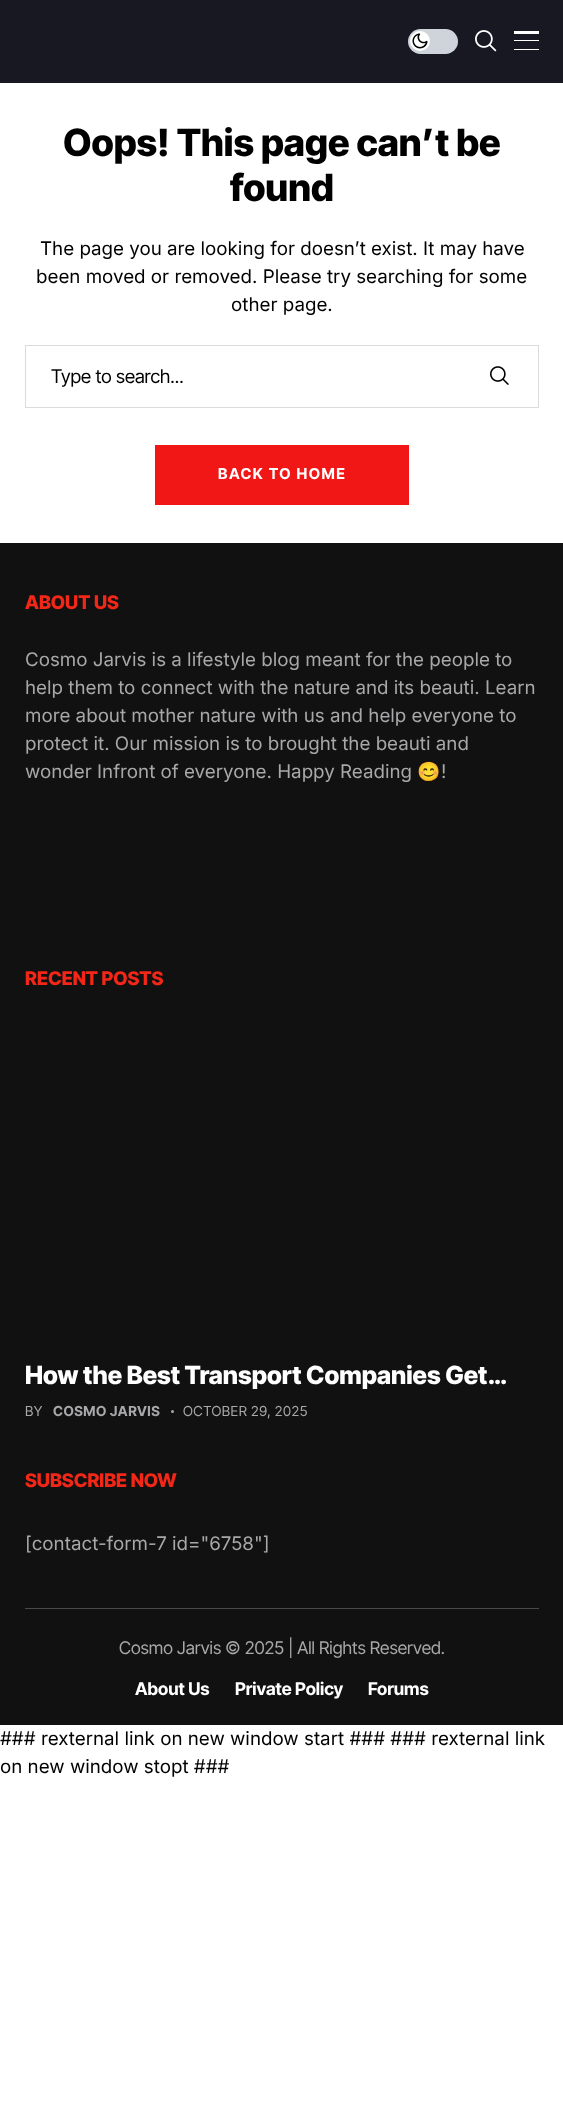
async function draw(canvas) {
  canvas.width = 563
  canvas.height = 2125
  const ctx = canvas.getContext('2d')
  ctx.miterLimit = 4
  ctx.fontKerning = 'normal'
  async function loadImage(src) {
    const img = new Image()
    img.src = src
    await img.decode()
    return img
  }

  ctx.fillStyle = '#fff'
  ctx.fillRect(0, 0, 563, 2125)
  ctx.fillStyle = '#181823'
  ctx.fillRect(0, 0, 563, 83)
  ctx.fillStyle = '#ced4da'
  ctx.beginPath()
  ctx.roundRect(408, 29, 50, 25, 12.5)
  ctx.fill()
  ctx.fillStyle = '#fff'
  ctx.beginPath()
  ctx.arc(420, 41, 10, 0, 2 * Math.PI)
  ctx.fill()
  ctx.drawImage(await loadImage('image0.png'), 412, 33, 16, 16)
  ctx.drawImage(await loadImage('image1.png'), 475, 30, 22, 22)
  ctx.fillRect(514, 31, 25, 3)
  ctx.fillRect(514, 40, 25, 1)
  ctx.fillRect(514, 49, 25, 1)
  ctx.font = '800 37.5px Inter Tight'
  ctx.fillStyle = '#000'
  ctx.fillText('Oops! This page can’t be', 63, 156)
  ctx.fillText('found', 230, 201)
  ctx.font = '18.75px Inter'
  ctx.fillText('The page you are looking for doesn’t exist. It may have', 40, 255)
  ctx.fillText('been moved or removed. Please try searching for some', 36, 283)
  ctx.fillText('other page.', 231, 311)
  ctx.strokeStyle = '#dbdbdb'
  ctx.strokeRect(25.5, 345.5, 513, 62)
  ctx.font = '18.75px Inter Tight'
  ctx.fillText('Type to search...', 51, 383)
  ctx.drawImage(await loadImage('image2.png'), 490, 366, 19, 19)
  ctx.fillStyle = '#f21717'
  ctx.fillRect(155, 445, 254, 60)
  ctx.letterSpacing = '1.5px'
  ctx.font = 'bold 15px Inter Tight'
  ctx.fillStyle = '#fff'
  ctx.fillText('BACK TO HOME', 218, 479)
  ctx.fillStyle = '#111'
  ctx.fillRect(0, 543, 563, 1182)
  ctx.letterSpacing = '0px'
  ctx.font = '800 18.75px Inter Tight'
  ctx.fillStyle = '#f22717'
  ctx.fillText('ABOUT US', 25, 609)
  ctx.font = '18.75px Inter'
  ctx.fillStyle = '#a8a8aa'
  ctx.fillText('Cosmo Jarvis is a lifestyle blog meant for the people to', 25, 666)
  ctx.fillText('help them to connect with the nature and its beauti. Learn', 25, 694)
  ctx.fillText('more about mother nature with us and help everyone to', 25, 722)
  ctx.fillText('protect it. Our mission is to brought the beauti and', 25, 750)
  ctx.fillText('wonder Infront of everyone. Happy Reading', 25, 778)
  ctx.font = '18.75px Noto Color Emoji'
  ctx.fillText('😊', 417, 778)
  ctx.font = '18.75px Inter'
  ctx.fillText('!', 441, 778)
  ctx.font = '800 18.75px Inter Tight'
  ctx.fillStyle = '#f22717'
  ctx.fillText('RECENT POSTS', 25, 985)
  ctx.font = '800 25px Inter Tight'
  ctx.fillStyle = '#fff'
  ctx.fillText('How the Best Transport Companies Get…', 25, 1384)
  ctx.letterSpacing = '0.5px'
  ctx.font = '13.75px Inter Tight'
  ctx.fillStyle = '#a8a8aa'
  ctx.fillText('BY', 25, 1416)
  ctx.font = 'bold 13.75px Inter Tight'
  ctx.fillText('COSMO JARVIS', 53, 1416)
  ctx.beginPath()
  ctx.arc(172.5, 1411.5, 1.5, 0, 2 * Math.PI)
  ctx.fill()
  ctx.font = '13.75px Inter Tight'
  ctx.fillText('OCTOBER 29, 2025', 183, 1416)
  ctx.letterSpacing = '0px'
  ctx.font = '800 18.75px Inter Tight'
  ctx.fillStyle = '#f22717'
  ctx.fillText('SUBSCRIBE NOW', 25, 1487)
  ctx.font = '18.75px Inter'
  ctx.fillStyle = '#a8a8aa'
  ctx.fillText('[contact-form-7 id="6758"]', 25, 1550)
  ctx.fillStyle = '#49494b'
  ctx.fillRect(25, 1608, 514, 1)
  ctx.font = '17.5px Inter Tight'
  ctx.fillStyle = '#a8a8aa'
  ctx.fillText('Cosmo Jarvis © 2025 | All Rights Reserved.', 119, 1654)
  ctx.font = 'bold 17.5px Inter Tight'
  ctx.fillStyle = '#fff'
  ctx.fillText('About Us', 135, 1695)
  ctx.fillText('Private Policy', 235, 1695)
  ctx.fillText('Forums', 368, 1695)
  ctx.font = '18.75px Inter'
  ctx.fillStyle = '#000'
  ctx.fillText('### rexternal link on new window start ### ### rexternal link', 0, 1745)
  ctx.fillText('on new window stopt ###', 0, 1773)
}

draw(document.querySelector('canvas'))
